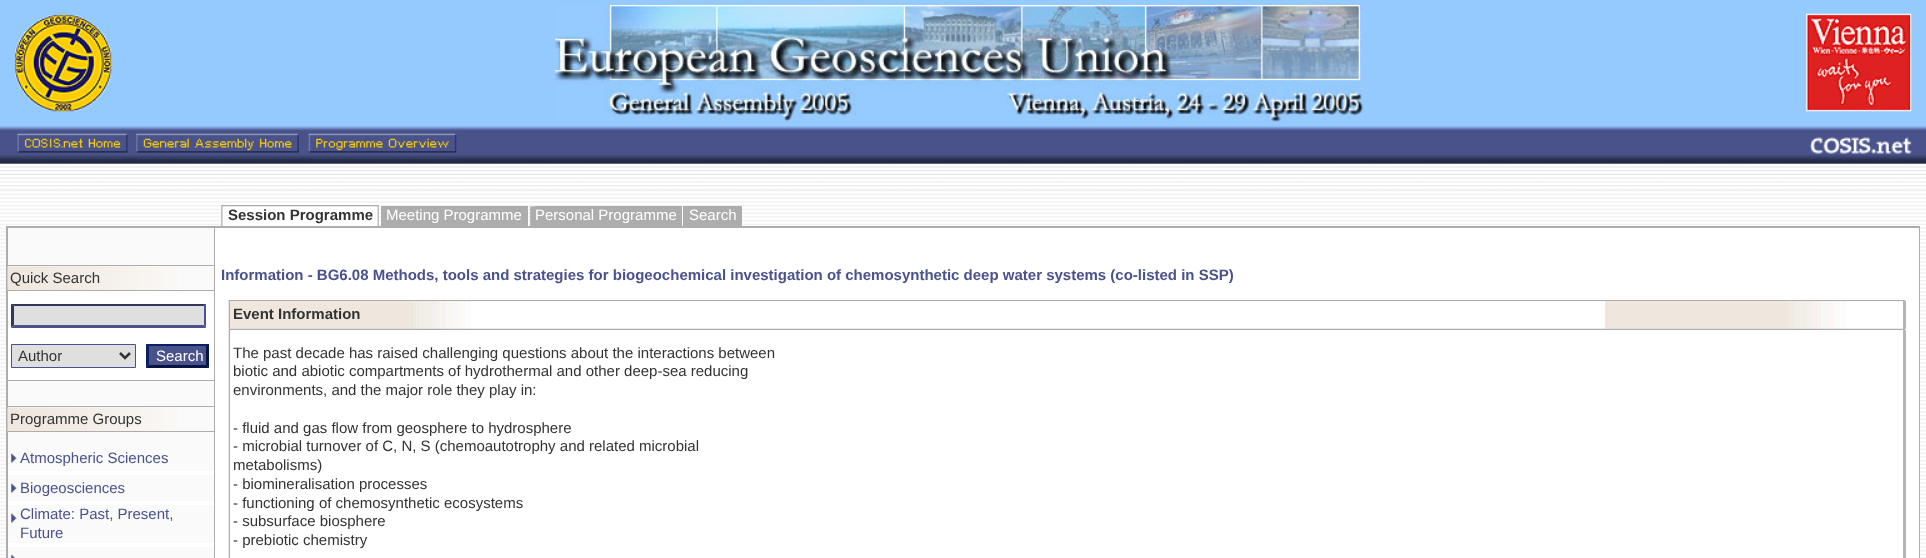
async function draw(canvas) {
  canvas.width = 1926
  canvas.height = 558
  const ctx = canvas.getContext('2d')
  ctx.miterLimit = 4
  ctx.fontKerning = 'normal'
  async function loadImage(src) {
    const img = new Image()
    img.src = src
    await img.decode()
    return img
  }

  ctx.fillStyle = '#fff'
  ctx.fillRect(0, 0, 1926, 558)
  ctx.drawImage(await loadImage('image0.png'), 0, 190, 1926, 368)
  ctx.drawImage(await loadImage('image1.png'), 0, 0, 1926, 190)
  ctx.drawImage(await loadImage('image2.png'), 15, 15, 97, 97)
  ctx.drawImage(await loadImage('image3.png'), 555, 5, 808, 117)
  ctx.drawImage(await loadImage('image4.png'), 1806, 13, 106, 99)
  ctx.drawImage(await loadImage('image5.png'), 17, 133, 111, 20)
  ctx.drawImage(await loadImage('image6.png'), 136, 133, 163, 20)
  ctx.drawImage(await loadImage('image7.png'), 308, 133, 149, 20)
  ctx.drawImage(await loadImage('image8.png'), 1810, 137, 102, 17)
  ctx.drawImage(await loadImage('image9.png'), 221, 205, 7, 21)
  ctx.drawImage(await loadImage('image10.png'), 227, 205, 146, 20)
  ctx.drawImage(await loadImage('image11.png'), 372, 205, 7, 21)
  ctx.font = 'bold 15px Liberation Sans'
  ctx.fillStyle = '#333'
  ctx.fillText('Session Programme', 228, 220)
  ctx.fillStyle = '#adadad'
  ctx.fillRect(381, 206, 6, 21)
  ctx.fillRect(387, 206, 136, 20)
  ctx.font = '15px Liberation Sans'
  ctx.fillStyle = '#fff'
  ctx.fillText('Meeting Programme', 386, 220)
  ctx.fillStyle = '#adadad'
  ctx.fillRect(523, 206, 5, 21)
  ctx.drawImage(await loadImage('image12.png'), 529, 206, 6, 20)
  ctx.fillRect(535, 206, 142, 20)
  ctx.fillStyle = '#fff'
  ctx.fillText('Personal Programme', 535, 220)
  ctx.fillStyle = '#adadad'
  ctx.fillRect(677, 206, 5, 21)
  ctx.fillRect(683, 206, 6, 21)
  ctx.fillRect(689, 206, 48, 20)
  ctx.fillStyle = '#fff'
  ctx.fillText('Search', 689, 220)
  ctx.fillStyle = '#adadad'
  ctx.fillRect(737, 206, 5, 21)
  ctx.fillRect(6, 226, 1914, 332)
  ctx.fillStyle = '#fafafa'
  ctx.fillRect(8, 228, 206, 330)
  ctx.fillStyle = '#adadad'
  ctx.fillRect(8, 265, 206, 1)
  ctx.drawImage(await loadImage('image13.png'), 7, 266, 170, 24)
  ctx.fillStyle = '#333'
  ctx.fillText('Quick Search', 10, 283)
  ctx.fillStyle = '#adadad'
  ctx.fillRect(8, 290, 206, 1)
  ctx.fillStyle = '#fff'
  ctx.fillRect(8, 291, 206, 89)
  ctx.fillStyle = '#dfdfdf'
  ctx.fillRect(11, 304, 195, 24)
  ctx.fillStyle = '#31375d'
  ctx.beginPath()
  ctx.moveTo(11, 304)
  ctx.lineTo(206, 304)
  ctx.lineTo(204, 306)
  ctx.lineTo(14, 306)
  ctx.closePath()
  ctx.fill()
  ctx.fillStyle = '#4a528c'
  ctx.beginPath()
  ctx.moveTo(206, 304)
  ctx.lineTo(206, 327.5)
  ctx.lineTo(204, 325)
  ctx.lineTo(204, 306)
  ctx.closePath()
  ctx.fill()
  ctx.beginPath()
  ctx.moveTo(206, 328)
  ctx.lineTo(11, 328)
  ctx.lineTo(14, 325)
  ctx.lineTo(204, 325)
  ctx.closePath()
  ctx.fill()
  ctx.fillStyle = '#31375d'
  ctx.beginPath()
  ctx.moveTo(11, 327.5)
  ctx.lineTo(11, 304)
  ctx.lineTo(14, 306)
  ctx.lineTo(14, 325)
  ctx.closePath()
  ctx.fill()
  ctx.fillStyle = '#dfdfdf'
  ctx.beginPath()
  ctx.rect(11.5, 344.5, 124, 23)
  ctx.fill()
  ctx.strokeStyle = '#4a528c'
  ctx.stroke()
  ctx.beginPath()
  ctx.moveTo(120, 353)
  ctx.lineTo(125, 358)
  ctx.lineTo(130, 353)
  ctx.strokeStyle = '#333'
  ctx.lineWidth = 2.5
  ctx.stroke()
  ctx.fillStyle = '#333'
  ctx.fillText('Author', 18, 361)
  ctx.fillStyle = '#4a528c'
  ctx.fillRect(146, 344, 63, 24)
  ctx.fillStyle = '#082163'
  ctx.beginPath()
  ctx.moveTo(146, 344)
  ctx.lineTo(209, 344)
  ctx.lineTo(206, 346)
  ctx.lineTo(149, 346)
  ctx.closePath()
  ctx.fill()
  ctx.fillStyle = '#051642'
  ctx.beginPath()
  ctx.moveTo(209, 344)
  ctx.lineTo(209, 367.5)
  ctx.lineTo(206, 365)
  ctx.lineTo(206, 346)
  ctx.closePath()
  ctx.fill()
  ctx.beginPath()
  ctx.moveTo(209, 368)
  ctx.lineTo(146, 368)
  ctx.lineTo(149, 365)
  ctx.lineTo(206, 365)
  ctx.closePath()
  ctx.fill()
  ctx.fillStyle = '#082163'
  ctx.beginPath()
  ctx.moveTo(146, 367.5)
  ctx.lineTo(146, 344)
  ctx.lineTo(149, 346)
  ctx.lineTo(149, 365)
  ctx.closePath()
  ctx.fill()
  ctx.fillStyle = '#fff'
  ctx.fillText('Search', 156, 361)
  ctx.fillStyle = '#adadad'
  ctx.fillRect(8, 380, 206, 1)
  ctx.fillRect(8, 406, 206, 1)
  ctx.drawImage(await loadImage('image14.png'), 7, 407, 170, 25)
  ctx.fillStyle = '#333'
  ctx.fillText('Programme Groups', 10, 424)
  ctx.fillStyle = '#adadad'
  ctx.fillRect(8, 431, 206, 1)
  ctx.drawImage(await loadImage('image15.png'), 11, 453, 6, 10)
  ctx.fillStyle = '#4a528c'
  ctx.fillText('Atmospheric Sciences', 20, 463)
  ctx.fillStyle = '#fff'
  ctx.fillRect(8, 471, 206, 4)
  ctx.drawImage(await loadImage('image15.png'), 11, 483, 6, 10)
  ctx.fillStyle = '#4a528c'
  ctx.fillText('Biogeosciences', 20, 493)
  ctx.fillStyle = '#fff'
  ctx.fillRect(8, 501, 206, 4)
  ctx.drawImage(await loadImage('image15.png'), 11, 513, 6, 10)
  ctx.fillStyle = '#4a528c'
  ctx.fillText('Climate: Past, Present,', 20, 519)
  ctx.fillText('Future', 20, 538)
  ctx.fillStyle = '#fff'
  ctx.fillRect(8, 543, 206, 4)
  ctx.drawImage(await loadImage('image16.png'), 11, 554, 5, 4)
  ctx.fillRect(215, 228, 1704, 330)
  ctx.font = 'bold 15px Liberation Sans'
  ctx.fillStyle = '#4a528c'
  ctx.fillText('Information - BG6.08 Methods, tools and strategies for biogeochemical investigation of chemosynthetic deep water systems (co-listed in SSP)', 221, 280)
  ctx.drawImage(await loadImage('image17.png'), 228, 300, 2, 2)
  ctx.drawImage(await loadImage('image18.png'), 230, 300, 1674, 2)
  ctx.drawImage(await loadImage('image19.png'), 1903, 300, 3, 1)
  ctx.drawImage(await loadImage('image20.png'), 228, 301, 2, 28)
  ctx.drawImage(await loadImage('image21.png'), 230, 301, 1673, 28)
  ctx.fillStyle = '#333'
  ctx.fillText('Event Information', 233, 319)
  ctx.fillStyle = '#b5b5b5'
  ctx.fillRect(1903, 301, 3, 28)
  ctx.drawImage(await loadImage('image22.png'), 228, 328, 2, 2)
  ctx.drawImage(await loadImage('image23.png'), 230, 328, 1674, 2)
  ctx.drawImage(await loadImage('image24.png'), 1903, 328, 3, 2)
  ctx.drawImage(await loadImage('image25.png'), 228, 330, 2, 228)
  ctx.font = '15px Liberation Sans'
  ctx.fillStyle = '#333'
  ctx.fillText('The past decade has raised challenging questions about the interactions between', 233, 358)
  ctx.fillText('biotic and abiotic compartments of hydrothermal and other deep-sea reducing', 233, 376)
  ctx.fillText('environments, and the major role they play in:', 233, 395)
  ctx.fillText('- fluid and gas flow from geosphere to hydrosphere', 233, 433)
  ctx.fillText('- microbial turnover of C, N, S (chemoautotrophy and related microbial', 233, 451)
  ctx.fillText('metabolisms)', 233, 470)
  ctx.fillText('- biomineralisation processes', 233, 489)
  ctx.fillText('- functioning of chemosynthetic ecosystems', 233, 508)
  ctx.fillText('- subsurface biosphere', 233, 526)
  ctx.fillText('- prebiotic chemistry', 233, 545)
  ctx.fillStyle = '#b5b5b5'
  ctx.fillRect(1903, 330, 3, 228)
}

draw(document.querySelector('canvas'))
